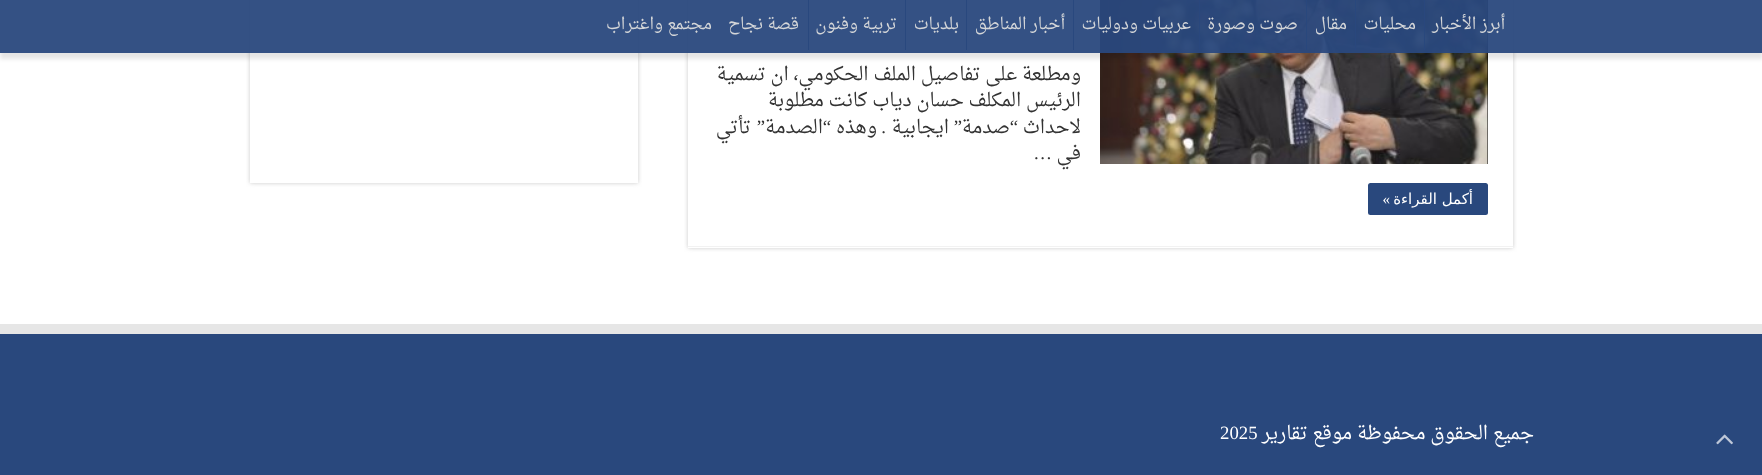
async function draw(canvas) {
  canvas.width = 1762
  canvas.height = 475
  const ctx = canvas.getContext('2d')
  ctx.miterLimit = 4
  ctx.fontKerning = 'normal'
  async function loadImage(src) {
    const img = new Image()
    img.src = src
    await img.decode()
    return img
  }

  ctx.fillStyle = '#fff'
  ctx.fillRect(0, 0, 1762, 475)
  ctx.fillStyle = '#29487d'
  ctx.fillRect(0, 334, 1762, 141)
  ctx.drawImage(await loadImage('image0.png'), 1716, 434, 17, 11)
  ctx.fillStyle = '#cacaca'
  ctx.filter = 'blur(2px)'
  ctx.beginPath()
  ctx.rect(688, -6, 825, 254)
  ctx.fill()
  ctx.filter = 'none'
  ctx.fillStyle = '#fff'
  ctx.fillRect(688, 0, 825, 248)
  ctx.fillStyle = '#000'
  ctx.fillRect(1487, 0, 1, 164)
  ctx.drawImage(await loadImage('image1.png'), 1100, 0, 388, 164)
  ctx.fillStyle = '#cacaca'
  ctx.filter = 'blur(2px)'
  ctx.beginPath()
  ctx.rect(250, -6, 388, 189)
  ctx.fill()
  ctx.filter = 'none'
  ctx.fillStyle = '#fff'
  ctx.fillRect(250, 0, 388, 183)
  ctx.save()
  ctx.beginPath()
  ctx.moveTo(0, 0)
  ctx.lineTo(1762, 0)
  ctx.lineTo(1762, 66)
  ctx.lineTo(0, 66)
  ctx.closePath()
  ctx.moveTo(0, 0)
  ctx.lineTo(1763, 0)
  ctx.lineTo(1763, 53)
  ctx.lineTo(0, 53)
  ctx.closePath()
  ctx.clip('evenodd')
  ctx.fillStyle = '#0000001a'
  ctx.filter = 'blur(2px)'
  ctx.beginPath()
  ctx.rect(0, 6, 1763, 53)
  ctx.fill()
  ctx.filter = 'none'
  ctx.restore()
  ctx.fillStyle = '#29487df2'
  ctx.fillRect(0, 0, 1762, 53)
  ctx.direction = 'rtl'
  ctx.font = '16.25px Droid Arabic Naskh'
  ctx.fillStyle = '#d4d6d8'
  ctx.fillText('أبرز الأخبار', 1505, 29)
  ctx.fillStyle = '#29487df2'
  ctx.fillRect(1424, 0, 1, 50)
  ctx.fillStyle = '#d4d6d8'
  ctx.fillText('محليات', 1416, 29)
  ctx.fillStyle = '#29487df2'
  ctx.fillRect(1355, 0, 1, 50)
  ctx.fillStyle = '#d4d6d8'
  ctx.fillText('مقال', 1347, 29)
  ctx.fillStyle = '#29487df2'
  ctx.fillRect(1306, 0, 1, 50)
  ctx.fillStyle = '#d4d6d8'
  ctx.fillText('صوت وصورة', 1298, 29)
  ctx.fillStyle = '#29487df2'
  ctx.fillRect(1199, 0, 1, 50)
  ctx.fillStyle = '#d4d6d8'
  ctx.fillText('عربيات ودوليات', 1191, 29)
  ctx.fillStyle = '#29487df2'
  ctx.fillRect(1073, 0, 1, 50)
  ctx.fillStyle = '#d4d6d8'
  ctx.fillText('أخبار المناطق', 1065, 29)
  ctx.fillStyle = '#29487df2'
  ctx.fillRect(966, 0, 1, 50)
  ctx.fillStyle = '#d4d6d8'
  ctx.fillText('بلديات', 959, 29)
  ctx.fillStyle = '#29487df2'
  ctx.fillRect(905, 0, 1, 50)
  ctx.fillStyle = '#d4d6d8'
  ctx.fillText('تربية وفنون', 897, 29)
  ctx.fillStyle = '#29487df2'
  ctx.fillRect(808, 0, 1, 50)
  ctx.fillStyle = '#d4d6d8'
  ctx.fillText('قصة نجاح', 799, 29)
  ctx.fillText('مجتمع واغتراب', 712, 29)
  ctx.fillStyle = '#f2f2f2'
  ctx.fillRect(688, 246, 825, 1)
  ctx.font = '18.75px Droid Arabic Naskh'
  ctx.fillStyle = '#333'
  ctx.fillText('ومطلعة على تفاصيل الملف الحكومي، ان تسمية', 1081, 80)
  ctx.fillText('الرئيس المكلف حسان دياب كانت مطلوبة', 1081, 106)
  ctx.fillText('لاحداث', 1081, 133)
  ctx.font = '18.75px Liberation Serif'
  ctx.fillText('“', 1018, 133)
  ctx.font = '18.75px Droid Arabic Naskh'
  ctx.fillText('صدمة', 1010, 133)
  ctx.font = '18.75px Liberation Serif'
  ctx.fillText('”', 962, 133)
  ctx.font = '18.75px Droid Arabic Naskh'
  ctx.fillText('ايجابية', 949, 133)
  ctx.fillText('وهذه', 877, 133)
  ctx.font = '18.75px Liberation Serif'
  ctx.fillText('“', 831, 133)
  ctx.font = '18.75px Droid Arabic Naskh'
  ctx.fillText('الصدمة', 823, 133)
  ctx.font = '18.75px Liberation Serif'
  ctx.fillText('”', 765, 133)
  ctx.font = '18.75px Droid Arabic Naskh'
  ctx.fillText('تأتي', 751, 133)
  ctx.font = '18.75px Liberation Serif'
  ctx.fillText('.', 886, 133)
  ctx.font = '18.75px Droid Arabic Naskh'
  ctx.fillText('في', 1081, 159)
  ctx.font = '18.75px Liberation Serif'
  ctx.fillText('…', 1052, 159)
  ctx.fillStyle = '#29487d'
  ctx.beginPath()
  ctx.roundRect(1368, 183, 120, 32, 2.5)
  ctx.fill()
  ctx.font = '15px DejaVu Sans'
  ctx.fillStyle = '#fff'
  ctx.fillText('أكمل القراءة', 1473, 204)
  ctx.font = '15px Liberation Serif'
  ctx.fillText('»', 1390, 204)
  ctx.fillStyle = '#e6e6e6'
  ctx.beginPath()
  ctx.moveTo(0, 324)
  ctx.lineTo(0, 334)
  ctx.lineTo(1762, 334)
  ctx.lineTo(1762, 384)
  ctx.lineTo(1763, 384)
  ctx.lineTo(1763, 324)
  ctx.closePath()
  ctx.fill()
  ctx.font = '18.75px Droid Arabic Naskh'
  ctx.fillStyle = '#fff'
  ctx.fillText('جميع الحقوق محفوظة موقع تقارير', 1534, 439)
  ctx.direction = 'ltr'
  ctx.font = '18.75px Liberation Serif'
  ctx.fillText('2025', 1220, 439)
}

draw(document.querySelector('canvas'))
